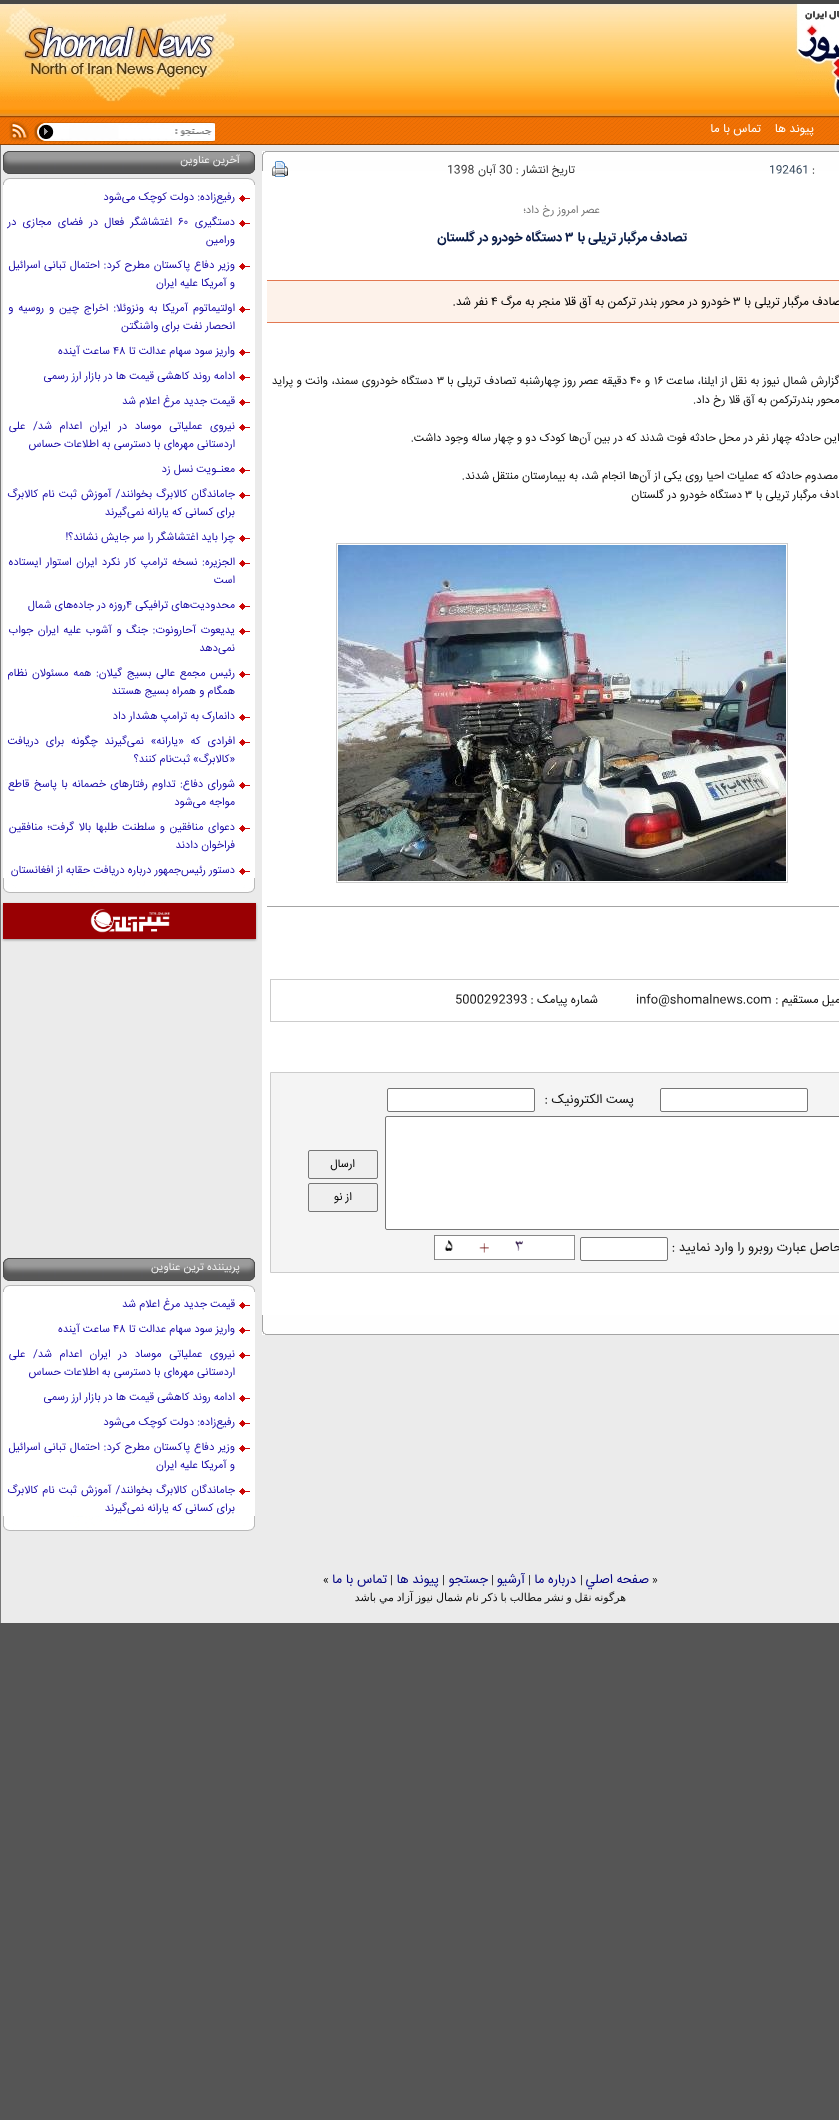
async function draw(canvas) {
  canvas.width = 839
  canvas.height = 2120
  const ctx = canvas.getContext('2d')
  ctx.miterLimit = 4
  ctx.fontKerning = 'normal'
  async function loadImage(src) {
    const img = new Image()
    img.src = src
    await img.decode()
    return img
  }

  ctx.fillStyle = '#555'
  ctx.fillRect(0, 0, 839, 2120)
  ctx.fillStyle = '#ebebeb'
  ctx.fillRect(1, 145, 838, 1478)
  ctx.fillStyle = '#777'
  ctx.fillRect(0, 145, 1, 1478)
  ctx.drawImage(await loadImage('image0.png'), 0, 4, 839, 112)
  ctx.fillStyle = '#474747'
  ctx.fillRect(0, 0, 839, 4)
  ctx.drawImage(await loadImage('image1.png'), 795, 4, 44, 96)
  ctx.drawImage(await loadImage('image2.png'), 0, 4, 250, 99)
  ctx.drawImage(await loadImage('image3.png'), 0, 116, 839, 29)
  ctx.direction = 'rtl'
  ctx.font = '12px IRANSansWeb'
  ctx.fillStyle = '#fff'
  ctx.fillText('پيوند ها', 814, 132)
  ctx.fillText('تماس با ما', 761, 132)
  ctx.drawImage(await loadImage('image4.png'), 55, 122, 160, 20)
  ctx.drawImage(await loadImage('image5.png'), 34, 122, 21, 20)
  ctx.drawImage(await loadImage('image6.png'), 9, 121, 20, 20)
  ctx.fillRect(262, 171, 577, 1144)
  ctx.drawImage(await loadImage('image7.png'), 262, 151, 577, 20)
  ctx.direction = 'ltr'
  ctx.font = '11.35px IRANSansWeb'
  ctx.fillStyle = '#333'
  ctx.fillText(':', 812, 173)
  ctx.font = '11px IRANSansWeb'
  ctx.fillStyle = '#2d4157'
  ctx.fillText('192461', 769, 173)
  ctx.direction = 'rtl'
  ctx.font = '11.35px IRANSansWeb'
  ctx.fillStyle = '#333'
  ctx.fillText('تاریخ انتشار :', 575, 173)
  ctx.direction = 'ltr'
  ctx.fillText('30', 499, 173)
  ctx.direction = 'rtl'
  ctx.fillText('آبان', 496, 173)
  ctx.direction = 'ltr'
  ctx.fillText('1398', 447, 173)
  ctx.drawImage(await loadImage('image8.png'), 272, 161, 16, 16)
  ctx.direction = 'rtl'
  ctx.font = '11px IRANSansWeb'
  ctx.fillStyle = '#777'
  ctx.fillText('عصر امروز رخ داد؛', 600, 213)
  ctx.font = 'bold 13px IRANSansWeb'
  ctx.fillStyle = '#091b47'
  ctx.fillText('تصادف مرگبار تریلی با', 687, 241)
  ctx.direction = 'ltr'
  ctx.fillText('۳', 565, 241)
  ctx.direction = 'rtl'
  ctx.fillText('دستگاه خودرو در گلستان', 562, 241)
  ctx.drawImage(await loadImage('image9.png'), 262, 1315, 577, 20)
  ctx.fillStyle = '#fdf2ea'
  ctx.fillRect(267, 281, 572, 41)
  ctx.fillStyle = '#e27851'
  ctx.fillRect(267, 280, 572, 1)
  ctx.fillRect(267, 322, 572, 1)
  ctx.font = '12px IRANSansWeb'
  ctx.fillStyle = '#000'
  ctx.fillText('تصادف مرگبار تریلی با', 846, 305)
  ctx.direction = 'ltr'
  ctx.fillText('۳', 733, 305)
  ctx.direction = 'rtl'
  ctx.fillText('خودرو در محور بندر ترکمن به آق قلا منجر به مرگ', 730, 305)
  ctx.direction = 'ltr'
  ctx.fillText('۴', 491, 305)
  ctx.direction = 'rtl'
  ctx.fillText('نفر شد.', 488, 305)
  ctx.fillStyle = '#a4a4a4'
  ctx.fillRect(267, 906, 572, 1)
  ctx.wordSpacing = '0.25px'
  ctx.font = '11.35px IRANSansWeb'
  ctx.fillStyle = '#111'
  ctx.fillText('به گزارش شمال نیوز به نقل از ایلنا، ساعت', 852, 384)
  ctx.wordSpacing = '0px'
  ctx.direction = 'ltr'
  ctx.fillText('۱۶', 654, 384)
  ctx.direction = 'rtl'
  ctx.fillText('و', 650, 384)
  ctx.direction = 'ltr'
  ctx.fillText('۴۰', 630, 384)
  ctx.wordSpacing = '0.25px'
  ctx.direction = 'rtl'
  ctx.fillText('دقیقه عصر روز چهارشنبه تصادف تریلی با', 627, 384)
  ctx.wordSpacing = '0px'
  ctx.direction = 'ltr'
  ctx.fillText('۳', 437, 384)
  ctx.wordSpacing = '0.25px'
  ctx.direction = 'rtl'
  ctx.fillText('دستگاه خودروی سمند، وانت و پراید', 433, 384)
  ctx.wordSpacing = '0px'
  ctx.fillText('در محور بندرترکمن به آق قلا رخ داد.', 852, 403)
  ctx.fillText('در این حادثه چهار نفر در محل حادثه فوت شدند که در بین آن‌ها کودک دو و چهار ساله وجود داشت.', 852, 441)
  ctx.fillText('دو مصدوم حادثه که عملیات احیا روی یکی از آن‌ها انجام شد، به بیمارستان منتقل شدند.', 852, 479)
  ctx.fillText('تصادف مرگبار تریلی با', 852, 498)
  ctx.direction = 'ltr'
  ctx.fillText('۳', 745, 498)
  ctx.direction = 'rtl'
  ctx.fillText('دستگاه خودرو در گلستان', 742, 498)
  ctx.strokeStyle = '#ccc'
  ctx.strokeRect(336.5, 543.5, 451, 339)
  ctx.drawImage(await loadImage('image10.png'), 338, 545, 448, 336)
  ctx.strokeRect(270.5, 979.5, 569, 42)
  ctx.font = '12px IRANSansWeb'
  ctx.fillText('ایمیل مستقیم :‌', 848, 1003)
  ctx.direction = 'ltr'
  ctx.fillText('info@shomalnews.com', 636, 1003)
  ctx.direction = 'rtl'
  ctx.fillText('شماره پیامک :', 598, 1003)
  ctx.direction = 'ltr'
  ctx.fillText('5000292393', 455, 1003)
  ctx.fillStyle = '#f4f4f4'
  ctx.beginPath()
  ctx.rect(270.5, 1072.5, 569, 200)
  ctx.fill()
  ctx.stroke()
  ctx.fillStyle = '#fff'
  ctx.beginPath()
  ctx.roundRect(660.5, 1088.5, 147, 23, 1.5)
  ctx.fill()
  ctx.strokeStyle = '#767676'
  ctx.stroke()
  ctx.direction = 'rtl'
  ctx.font = '13px IRANSansWeb'
  ctx.fillStyle = '#111'
  ctx.fillText('پست الکترونیک :', 634, 1103)
  ctx.fillStyle = '#fff'
  ctx.beginPath()
  ctx.roundRect(387.5, 1088.5, 147, 23, 1.5)
  ctx.fill()
  ctx.stroke()
  ctx.beginPath()
  ctx.roundRect(385.5, 1116.5, 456, 113, 1.5)
  ctx.fill()
  ctx.stroke()
  ctx.fillStyle = '#111'
  ctx.fillText('حاصل عبارت روبرو را وارد نمایید :', 842, 1251)
  ctx.fillStyle = '#fff'
  ctx.beginPath()
  ctx.roundRect(580.5, 1237.5, 87, 23, 1.5)
  ctx.fill()
  ctx.stroke()
  ctx.drawImage(await loadImage('image11.png'), 434, 1235, 141, 25)
  ctx.fillStyle = '#efefef'
  ctx.beginPath()
  ctx.roundRect(308.5, 1150.5, 69, 28, 1.5)
  ctx.fill()
  ctx.stroke()
  ctx.font = '11.35px IRANSansWeb'
  ctx.fillStyle = '#000'
  ctx.fillText('ارسال', 355, 1167)
  ctx.fillStyle = '#efefef'
  ctx.beginPath()
  ctx.roundRect(308.5, 1183.5, 69, 28, 1.5)
  ctx.fill()
  ctx.stroke()
  ctx.fillStyle = '#000'
  ctx.fillText('از نو', 352, 1200)
  ctx.fillStyle = '#fff'
  ctx.fillRect(3, 185, 252, 693)
  ctx.drawImage(await loadImage('image12.png'), 3, 151, 252, 34)
  ctx.font = '11px IRANSansWeb'
  ctx.fillStyle = '#eee'
  ctx.fillText('آخرین عناوین', 240, 163)
  ctx.drawImage(await loadImage('image13.png'), 3, 878, 252, 15)
  ctx.drawImage(await loadImage('image14.png'), 239, 195, 11, 7)
  ctx.fillStyle = '#1d0ea8'
  ctx.fillText('رفیع‌زاده: دولت کوچک می‌شود', 235, 200)
  ctx.drawImage(await loadImage('image14.png'), 239, 220, 11, 7)
  ctx.fillText('دستگیری', 235, 225)
  ctx.direction = 'ltr'
  ctx.fillText('۶۰', 178, 225)
  ctx.wordSpacing = '3px'
  ctx.direction = 'rtl'
  ctx.fillText('اغتشاشگر فعال در فضای مجازی در', 172, 225)
  ctx.wordSpacing = '0px'
  ctx.fillText('ورامین', 235, 243)
  ctx.drawImage(await loadImage('image14.png'), 239, 263, 11, 7)
  ctx.wordSpacing = '0.75px'
  ctx.fillText('وزیر دفاع پاکستان مطرح کرد: احتمال تبانی اسرائیل', 235, 268)
  ctx.wordSpacing = '0px'
  ctx.fillText('و آمریکا علیه ایران', 235, 286)
  ctx.drawImage(await loadImage('image14.png'), 239, 306, 11, 7)
  ctx.wordSpacing = '1.75px'
  ctx.fillText('اولتیماتوم آمریکا به ونزوئلا: اخراج چین و روسیه و', 235, 311)
  ctx.wordSpacing = '0px'
  ctx.fillText('انحصار نفت برای واشنگتن', 235, 329)
  ctx.drawImage(await loadImage('image14.png'), 239, 349, 11, 7)
  ctx.fillText('واریز سود سهام عدالت تا', 235, 354)
  ctx.direction = 'ltr'
  ctx.fillText('۴۸', 113, 354)
  ctx.direction = 'rtl'
  ctx.fillText('ساعت آینده', 110, 354)
  ctx.drawImage(await loadImage('image14.png'), 239, 374, 11, 7)
  ctx.fillText('ادامه روند کاهشی قیمت ها در بازار ارز رسمی', 235, 379)
  ctx.drawImage(await loadImage('image14.png'), 239, 399, 11, 7)
  ctx.fillText('قیمت جدید مرغ اعلام شد', 235, 404)
  ctx.drawImage(await loadImage('image14.png'), 239, 424, 11, 7)
  ctx.wordSpacing = '4.5px'
  ctx.fillText('نیروی عملیاتی موساد در ایران اعدام شد/ علی', 235, 429)
  ctx.wordSpacing = '0px'
  ctx.fillText('اردستانی مهره‌ای با دسترسی به اطلاعات حساس', 235, 447)
  ctx.drawImage(await loadImage('image14.png'), 239, 467, 11, 7)
  ctx.fillText('معنـویت نسل زد', 235, 472)
  ctx.drawImage(await loadImage('image14.png'), 239, 492, 11, 7)
  ctx.wordSpacing = '1px'
  ctx.fillText('جاماندگان کالابرگ بخوانند/ آموزش ثبت نام کالابرگ', 235, 497)
  ctx.wordSpacing = '0px'
  ctx.fillText('برای کسانی که یارانه نمی‌گیرند', 235, 515)
  ctx.drawImage(await loadImage('image14.png'), 239, 535, 11, 7)
  ctx.fillText('چرا باید اغتشاشگر را سر جایش نشاند؟!', 235, 540)
  ctx.drawImage(await loadImage('image14.png'), 239, 560, 11, 7)
  ctx.wordSpacing = '1.5px'
  ctx.fillText('الجزیره: نسخه ترامپ کار نکرد ایران استوار ایستاده', 235, 565)
  ctx.wordSpacing = '0px'
  ctx.fillText('است', 235, 583)
  ctx.drawImage(await loadImage('image14.png'), 239, 603, 11, 7)
  ctx.fillText('محدودیت‌های ترافیکی', 235, 608)
  ctx.direction = 'ltr'
  ctx.fillText('۴', 126, 608)
  ctx.direction = 'rtl'
  ctx.fillText('روزه در جاده‌های شمال', 126, 608)
  ctx.drawImage(await loadImage('image14.png'), 239, 628, 11, 7)
  ctx.wordSpacing = '1.5px'
  ctx.fillText('یدیعوت آحارونوت: جنگ و آشوب علیه ایران جواب', 235, 633)
  ctx.wordSpacing = '0px'
  ctx.fillText('نمی‌دهد', 235, 651)
  ctx.drawImage(await loadImage('image14.png'), 239, 671, 11, 7)
  ctx.wordSpacing = '1.5px'
  ctx.fillText('رئیس مجمع عالی بسیج گیلان: همه مسئولان نظام', 235, 676)
  ctx.wordSpacing = '0px'
  ctx.fillText('همگام و همراه بسیج هستند', 235, 694)
  ctx.drawImage(await loadImage('image14.png'), 239, 714, 11, 7)
  ctx.fillText('دانمارک به ترامپ هشدار داد', 235, 719)
  ctx.drawImage(await loadImage('image14.png'), 239, 739, 11, 7)
  ctx.wordSpacing = '3.75px'
  ctx.fillText('افرادی که «یارانه» نمی‌گیرند چگونه برای دریافت', 235, 744)
  ctx.wordSpacing = '0px'
  ctx.fillText('«کالابرگ» ثبت‌نام کنند؟', 235, 762)
  ctx.drawImage(await loadImage('image14.png'), 239, 782, 11, 7)
  ctx.wordSpacing = '1.25px'
  ctx.fillText('شورای دفاع: تداوم رفتارهای خصمانه با پاسخ قاطع', 235, 787)
  ctx.wordSpacing = '0px'
  ctx.fillText('مواجه می‌شود', 235, 805)
  ctx.drawImage(await loadImage('image14.png'), 239, 825, 11, 7)
  ctx.wordSpacing = '1.5px'
  ctx.fillText('دعوای منافقین و سلطنت طلبها بالا گرفت؛ منافقین', 235, 830)
  ctx.wordSpacing = '0px'
  ctx.fillText('فراخوان دادند', 235, 848)
  ctx.drawImage(await loadImage('image14.png'), 239, 868, 11, 7)
  ctx.fillText('دستور رئیس‌جمهور درباره دریافت حقابه از افغانستان', 235, 873)
  ctx.fillStyle = '#0000003d'
  ctx.filter = 'blur(1px)'
  ctx.beginPath()
  ctx.rect(3, 904, 253, 36)
  ctx.fill()
  ctx.filter = 'none'
  ctx.fillStyle = '#0000001f'
  ctx.filter = 'blur(1.5px)'
  ctx.beginPath()
  ctx.rect(3, 904, 253, 36)
  ctx.fill()
  ctx.filter = 'none'
  ctx.fillStyle = '#990003'
  ctx.fillRect(3, 903, 253, 36)
  ctx.drawImage(await loadImage('image15.png'), 90, 909, 80, 24)
  ctx.fillStyle = '#fff'
  ctx.fillRect(3, 1292, 252, 224)
  ctx.drawImage(await loadImage('image12.png'), 3, 1258, 252, 34)
  ctx.fillStyle = '#eee'
  ctx.fillText('پربیننده ترین عناوین', 240, 1270)
  ctx.drawImage(await loadImage('image13.png'), 3, 1516, 252, 15)
  ctx.drawImage(await loadImage('image14.png'), 239, 1302, 11, 7)
  ctx.fillStyle = '#1d0ea8'
  ctx.fillText('قیمت جدید مرغ اعلام شد', 235, 1307)
  ctx.drawImage(await loadImage('image14.png'), 239, 1327, 11, 7)
  ctx.fillText('واریز سود سهام عدالت تا', 235, 1332)
  ctx.direction = 'ltr'
  ctx.fillText('۴۸', 113, 1332)
  ctx.direction = 'rtl'
  ctx.fillText('ساعت آینده', 110, 1332)
  ctx.drawImage(await loadImage('image14.png'), 239, 1352, 11, 7)
  ctx.wordSpacing = '4.5px'
  ctx.fillText('نیروی عملیاتی موساد در ایران اعدام شد/ علی', 235, 1357)
  ctx.wordSpacing = '0px'
  ctx.fillText('اردستانی مهره‌ای با دسترسی به اطلاعات حساس', 235, 1375)
  ctx.drawImage(await loadImage('image14.png'), 239, 1395, 11, 7)
  ctx.fillText('ادامه روند کاهشی قیمت ها در بازار ارز رسمی', 235, 1400)
  ctx.drawImage(await loadImage('image14.png'), 239, 1420, 11, 7)
  ctx.fillText('رفیع‌زاده: دولت کوچک می‌شود', 235, 1425)
  ctx.drawImage(await loadImage('image14.png'), 239, 1445, 11, 7)
  ctx.wordSpacing = '0.75px'
  ctx.fillText('وزیر دفاع پاکستان مطرح کرد: احتمال تبانی اسرائیل', 235, 1450)
  ctx.wordSpacing = '0px'
  ctx.fillText('و آمریکا علیه ایران', 235, 1468)
  ctx.drawImage(await loadImage('image14.png'), 239, 1488, 11, 7)
  ctx.wordSpacing = '1px'
  ctx.fillText('جاماندگان کالابرگ بخوانند/ آموزش ثبت نام کالابرگ', 235, 1493)
  ctx.wordSpacing = '0px'
  ctx.fillText('برای کسانی که یارانه نمی‌گیرند', 235, 1511)
  ctx.direction = 'ltr'
  ctx.font = '11.35px IRANSansWeb'
  ctx.fillStyle = '#111'
  ctx.fillText('»', 652, 1583)
  ctx.direction = 'rtl'
  ctx.font = '13px IRANSansWeb'
  ctx.fillStyle = '#000180'
  ctx.fillText('صفحه اصلي', 649, 1583)
  ctx.direction = 'ltr'
  ctx.font = '11.35px IRANSansWeb'
  ctx.fillStyle = '#111'
  ctx.fillText('|', 580, 1583)
  ctx.direction = 'rtl'
  ctx.font = '13px IRANSansWeb'
  ctx.fillStyle = '#000180'
  ctx.fillText('درباره ما', 576, 1583)
  ctx.direction = 'ltr'
  ctx.font = '11.35px IRANSansWeb'
  ctx.fillStyle = '#111'
  ctx.fillText('|', 528, 1583)
  ctx.direction = 'rtl'
  ctx.font = '13px IRANSansWeb'
  ctx.fillStyle = '#000180'
  ctx.fillText('آرشيو', 525, 1583)
  ctx.direction = 'ltr'
  ctx.font = '11.35px IRANSansWeb'
  ctx.fillStyle = '#111'
  ctx.fillText('|', 491, 1583)
  ctx.direction = 'rtl'
  ctx.font = '13px IRANSansWeb'
  ctx.fillStyle = '#000180'
  ctx.fillText('جستجو', 488, 1583)
  ctx.direction = 'ltr'
  ctx.font = '11.35px IRANSansWeb'
  ctx.fillStyle = '#111'
  ctx.fillText('|', 442, 1583)
  ctx.direction = 'rtl'
  ctx.font = '13px IRANSansWeb'
  ctx.fillStyle = '#000180'
  ctx.fillText('پيوند ها', 439, 1583)
  ctx.direction = 'ltr'
  ctx.font = '11.35px IRANSansWeb'
  ctx.fillStyle = '#111'
  ctx.fillText('|', 390, 1583)
  ctx.direction = 'rtl'
  ctx.font = '13px IRANSansWeb'
  ctx.fillStyle = '#000180'
  ctx.fillText('تماس با ما', 387, 1583)
  ctx.direction = 'ltr'
  ctx.font = '11.35px IRANSansWeb'
  ctx.fillStyle = '#111'
  ctx.fillText('«', 323, 1583)
  ctx.wordSpacing = '-0.75px'
  ctx.direction = 'rtl'
  ctx.font = '11px DejaVu Sans'
  ctx.fillText('هرگونه نقل و نشر مطالب با ذكر نام شمال نيوز آزاد مي باشد', 626, 1601)
}

draw(document.querySelector('canvas'))
